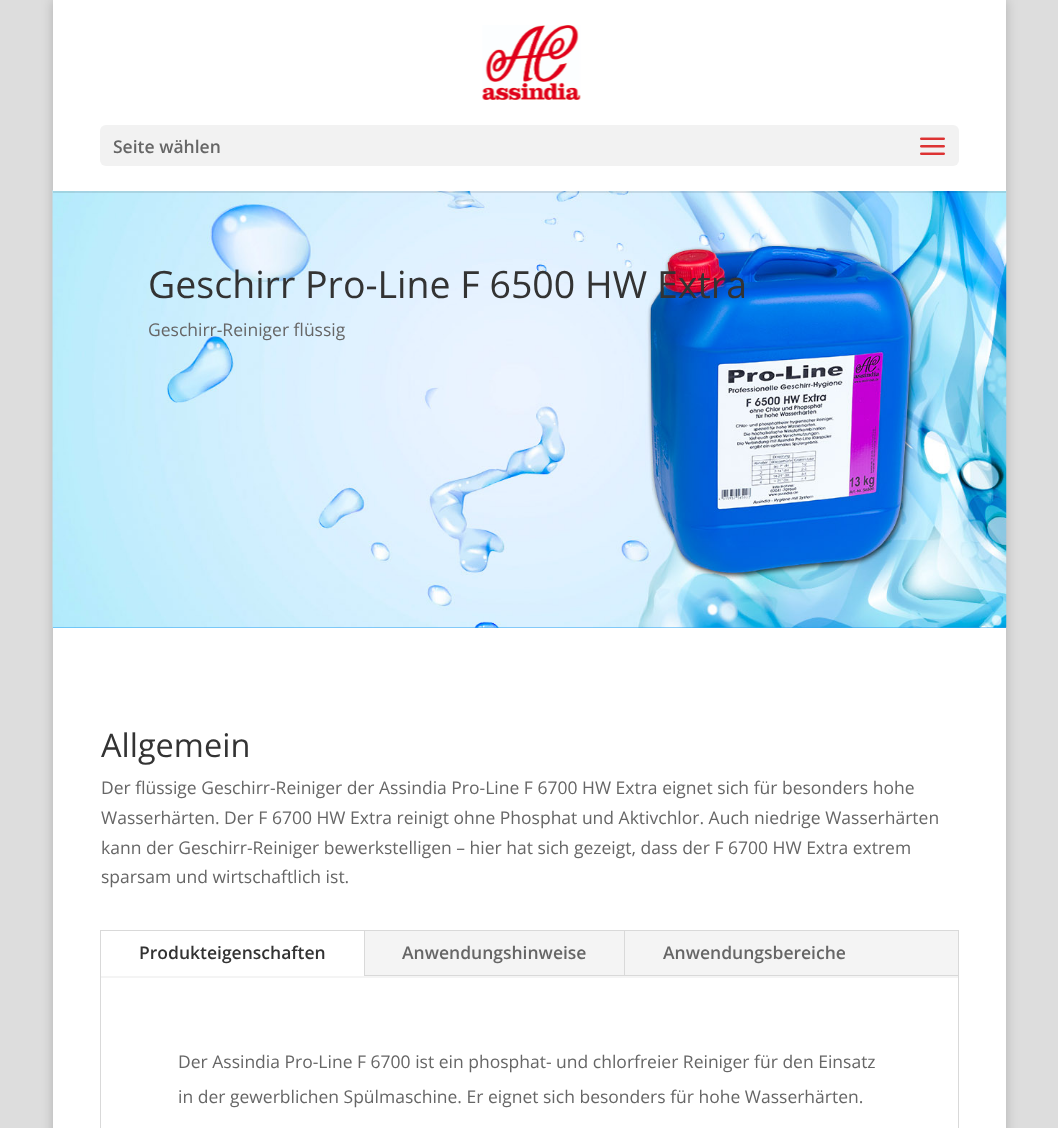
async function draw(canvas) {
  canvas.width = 1058
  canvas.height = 1128
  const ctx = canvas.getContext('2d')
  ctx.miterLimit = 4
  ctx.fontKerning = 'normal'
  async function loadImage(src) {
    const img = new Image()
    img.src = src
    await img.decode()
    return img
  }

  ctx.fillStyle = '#ddd'
  ctx.fillRect(0, 0, 1058, 1128)
  ctx.fillStyle = '#00000033'
  ctx.filter = 'blur(6px)'
  ctx.beginPath()
  ctx.rect(53, 0, 953, 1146)
  ctx.fill()
  ctx.filter = 'none'
  ctx.fillStyle = '#2ea3f2'
  ctx.fillRect(53, 627, 953, 1)
  ctx.drawImage(await loadImage('image2.png'), 52, 190, 955, 438)
  ctx.fillStyle = '#0000001a'
  ctx.fillRect(53, 191, 953, 2)
  ctx.fillStyle = '#fff'
  ctx.fillRect(53, 0, 953, 191)
  ctx.drawImage(await loadImage('image0.png'), 482, 25, 99, 75)
  ctx.fillStyle = '#f2f2f2'
  ctx.beginPath()
  ctx.roundRect(100, 125, 859, 41, 6)
  ctx.fill()
  ctx.font = '600 17.5px Open Sans'
  ctx.fillStyle = '#666'
  ctx.fillText('Seite wählen', 113, 153)
  ctx.drawImage(await loadImage('image1.png'), 920, 137, 25, 18)
  ctx.font = '37.5px Open Sans'
  ctx.fillStyle = '#333'
  ctx.fillText('Geschirr Pro-Line F 6500 HW Extra', 148, 298)
  ctx.font = '17.5px Open Sans'
  ctx.fillStyle = '#666'
  ctx.fillText('Geschirr-Reiniger flüssig', 148, 336)
  ctx.fillStyle = '#fff'
  ctx.fillRect(53, 628, 953, 500)
  ctx.font = '32.5px Open Sans'
  ctx.fillStyle = '#333'
  ctx.fillText('Allgemein', 101, 757)
  ctx.font = '17.5px Open Sans'
  ctx.fillStyle = '#666'
  ctx.fillText('Der flüssige Geschirr-Reiniger der Assindia Pro-Line F 6700 HW Extra eignet sich für besonders hohe', 101, 794)
  ctx.fillText('Wasserhärten. Der F 6700 HW Extra reinigt ohne Phosphat und Aktivchlor. Auch niedrige Wasserhärten', 101, 824)
  ctx.fillText('kann der Geschirr-Reiniger bewerkstelligen – hier hat sich gezeigt, dass der F 6700 HW Extra extrem', 101, 854)
  ctx.fillText('sparsam und wirtschaftlich ist.', 101, 883)
  ctx.strokeStyle = '#d9d9d9'
  ctx.strokeRect(100.5, 930.5, 858, 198)
  ctx.fillStyle = '#f4f4f4'
  ctx.fillRect(101, 931, 857, 47)
  ctx.fillStyle = '#fff'
  ctx.fillRect(101, 931, 263, 45)
  ctx.fillStyle = '#d9d9d9'
  ctx.fillRect(364, 931, 1, 45)
  ctx.font = '600 17.5px Open Sans'
  ctx.fillStyle = '#333'
  ctx.fillText('Produkteigenschaften', 139, 959)
  ctx.fillStyle = '#d9d9d9'
  ctx.fillRect(365, 975, 593, 1)
  ctx.fillRect(624, 931, 1, 45)
  ctx.fillStyle = '#666'
  ctx.fillText('Anwendungshinweise', 402, 959)
  ctx.fillText('Anwendungsbereiche', 663, 959)
  ctx.font = '17.5px Open Sans'
  ctx.fillText('Der Assindia Pro-Line F 6700 ist ein phosphat- und chlorfreier Reiniger für den Einsatz', 178, 1068)
  ctx.fillText('in der gewerblichen Spülmaschine. Er eignet sich besonders für hohe Wasserhärten.', 178, 1103)
}

draw(document.querySelector('canvas'))
